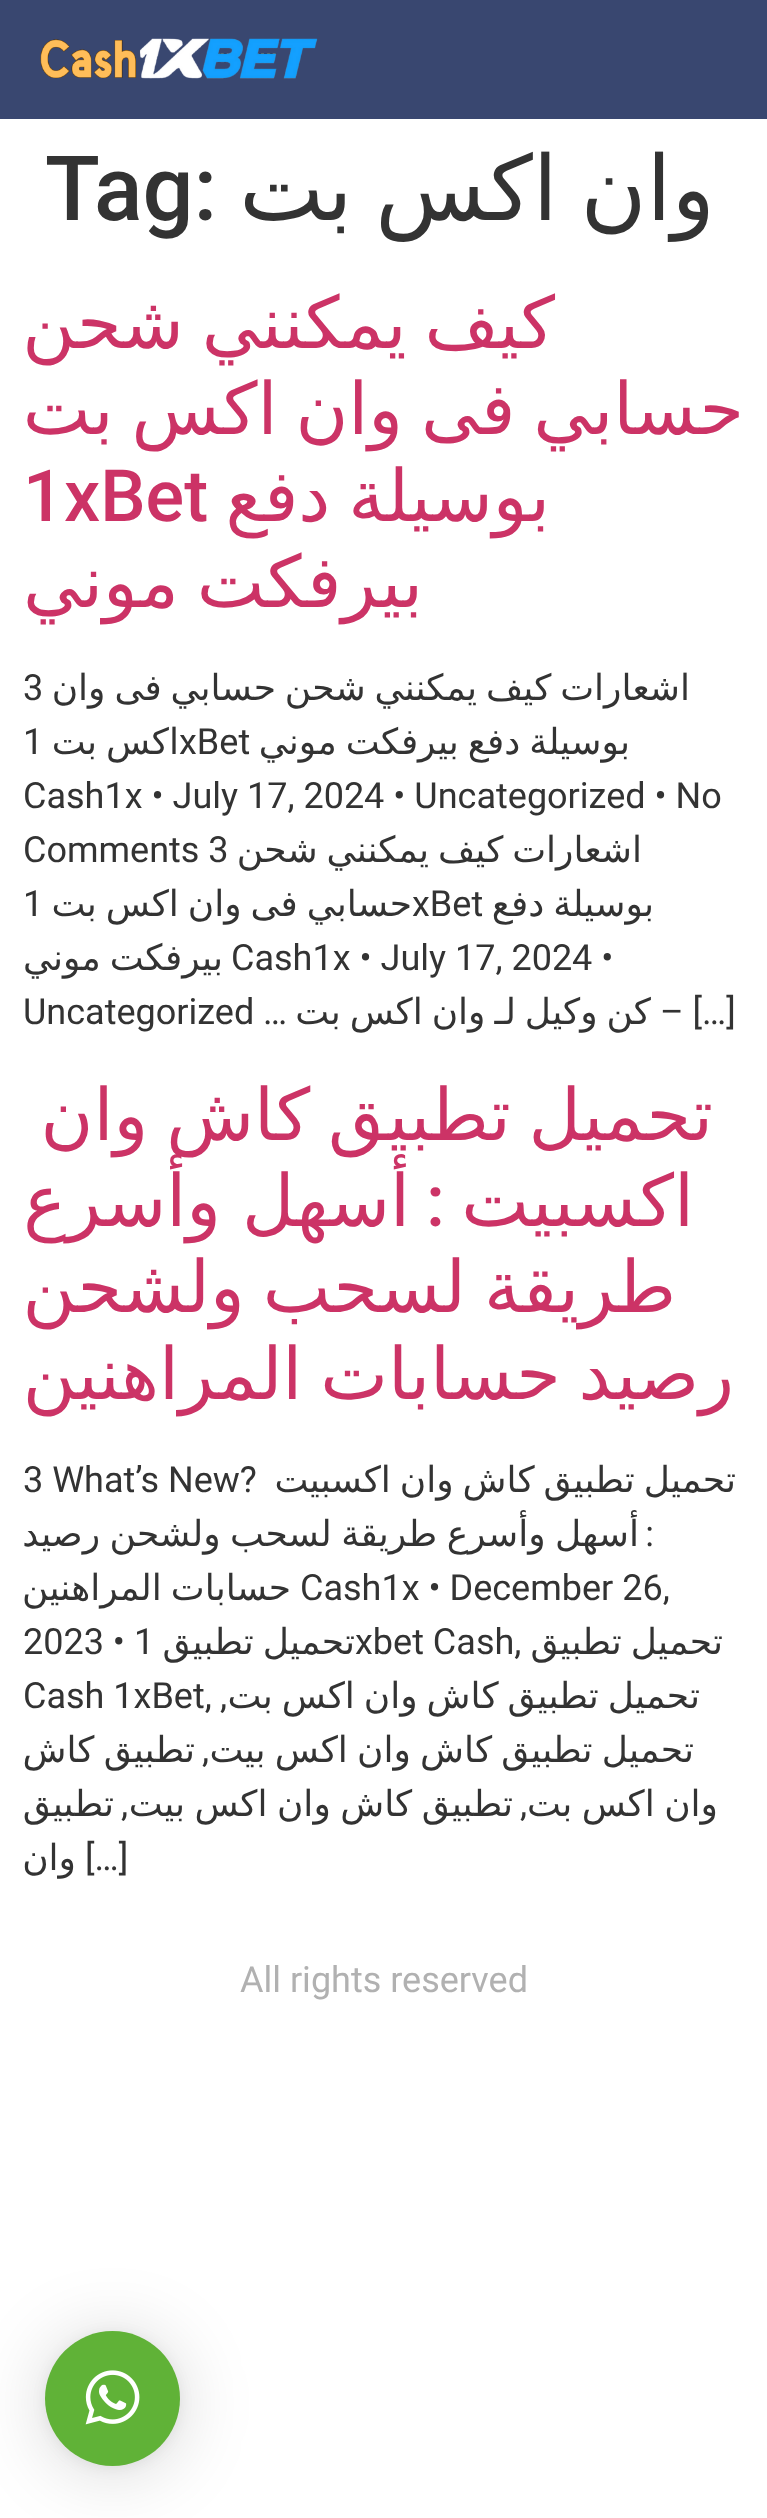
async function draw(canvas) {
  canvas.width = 767
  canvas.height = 2518
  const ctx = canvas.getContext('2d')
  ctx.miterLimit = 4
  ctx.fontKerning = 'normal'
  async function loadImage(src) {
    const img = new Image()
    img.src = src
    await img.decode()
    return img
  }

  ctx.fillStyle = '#fff'
  ctx.fillRect(0, 0, 767, 2518)
  ctx.fillStyle = '#394770'
  ctx.fillRect(0, 0, 767, 119)
  ctx.drawImage(await loadImage('image0.png'), 40, 38, 278, 41)
  ctx.wordSpacing = '-6px'
  ctx.direction = 'rtl'
  ctx.font = '90px DejaVu Sans'
  ctx.fillStyle = '#333'
  ctx.fillText('وان اكس بت', 715, 220)
  ctx.wordSpacing = '0px'
  ctx.direction = 'ltr'
  ctx.font = '500 90px Roboto'
  ctx.fillText('Tag:', 45, 220)
  ctx.wordSpacing = '-5px'
  ctx.direction = 'rtl'
  ctx.font = '72px DejaVu Sans'
  ctx.fillStyle = '#c36'
  ctx.fillText('كيف يمكنني شحن', 555, 348)
  ctx.fillText('حسابي فى وان اكس بت', 744, 434)
  ctx.fillText('بوسيلة دفع', 550, 521)
  ctx.wordSpacing = '0px'
  ctx.direction = 'ltr'
  ctx.font = '500 72px Roboto'
  ctx.fillText('1xBet', 23, 521)
  ctx.wordSpacing = '-5px'
  ctx.direction = 'rtl'
  ctx.font = '72px DejaVu Sans'
  ctx.fillText('بيرفكت موني', 423, 607)
  ctx.wordSpacing = '-2.5px'
  ctx.font = '36px DejaVu Sans'
  ctx.fillStyle = '#333'
  ctx.fillText('اشعارات كيف يمكنني شحن حسابي فى وان', 690, 700)
  ctx.wordSpacing = '0px'
  ctx.direction = 'ltr'
  ctx.font = '36px Roboto'
  ctx.fillText('3', 23, 700)
  ctx.wordSpacing = '-2.5px'
  ctx.direction = 'rtl'
  ctx.font = '36px DejaVu Sans'
  ctx.fillText('بوسيلة دفع بيرفكت موني', 630, 754)
  ctx.wordSpacing = '0px'
  ctx.direction = 'ltr'
  ctx.font = '36px Roboto'
  ctx.fillText('xBet', 179, 754)
  ctx.wordSpacing = '-2.5px'
  ctx.direction = 'rtl'
  ctx.font = '36px DejaVu Sans'
  ctx.fillText('اكس بت', 179, 754)
  ctx.wordSpacing = '0px'
  ctx.direction = 'ltr'
  ctx.font = '36px Roboto'
  ctx.fillText('1', 23, 754)
  ctx.fillText('Cash1x • July 17, 2024 • Uncategorized • No', 23, 808)
  ctx.wordSpacing = '-2.5px'
  ctx.direction = 'rtl'
  ctx.font = '36px DejaVu Sans'
  ctx.fillText('اشعارات كيف يمكنني شحن', 642, 862)
  ctx.wordSpacing = '0px'
  ctx.direction = 'ltr'
  ctx.font = '36px Roboto'
  ctx.fillText('Comments 3', 23, 862)
  ctx.wordSpacing = '-2.5px'
  ctx.direction = 'rtl'
  ctx.font = '36px DejaVu Sans'
  ctx.fillText('بوسيلة دفع', 654, 916)
  ctx.fillText('حسابي فى وان اكس بت', 412, 916)
  ctx.wordSpacing = '0px'
  ctx.direction = 'ltr'
  ctx.font = '36px Roboto'
  ctx.fillText('xBet', 412, 916)
  ctx.fillText('1', 23, 916)
  ctx.fillText('Cash1x • July 17, 2024 •', 231, 970)
  ctx.wordSpacing = '-2.5px'
  ctx.direction = 'rtl'
  ctx.font = '36px DejaVu Sans'
  ctx.fillText('بيرفكت موني', 223, 970)
  ctx.fillText('كن وكيل لـ وان اكس بت', 651, 1024)
  ctx.wordSpacing = '0px'
  ctx.direction = 'ltr'
  ctx.font = '36px Roboto'
  ctx.fillText('– […]', 660, 1024)
  ctx.fillText('Uncategorized …', 23, 1024)
  ctx.wordSpacing = '-5px'
  ctx.direction = 'rtl'
  ctx.font = '72px DejaVu Sans'
  ctx.fillStyle = '#c36'
  ctx.fillText('تحميل تطبيق كاش وان', 713, 1140)
  ctx.wordSpacing = '0px'
  ctx.fillText('اكسبيت', 694, 1226)
  ctx.font = '500 72px Roboto'
  ctx.fillText(':', 445, 1226)
  ctx.wordSpacing = '-2px'
  ctx.font = '72px DejaVu Sans'
  ctx.fillText('أسهل وأسرع', 410, 1226)
  ctx.wordSpacing = '-5px'
  ctx.fillText('طريقة لسحب ولشحن', 676, 1312)
  ctx.fillText('رصيد حسابات المراهنين', 734, 1399)
  ctx.wordSpacing = '-2.5px'
  ctx.font = '36px DejaVu Sans'
  ctx.fillStyle = '#333'
  ctx.fillText('تحميل تطبيق كاش وان اكسبيت', 736, 1492)
  ctx.wordSpacing = '0px'
  ctx.direction = 'ltr'
  ctx.font = '36px Roboto'
  ctx.fillText('3 What’s New?', 23, 1492)
  ctx.wordSpacing = '-2px'
  ctx.direction = 'rtl'
  ctx.font = '36px DejaVu Sans'
  ctx.fillText('أسهل وأسرع طريقة لسحب ولشحن رصيد', 639, 1546)
  ctx.wordSpacing = '0px'
  ctx.font = '36px Roboto'
  ctx.fillText(':', 654, 1546)
  ctx.direction = 'ltr'
  ctx.fillText('Cash1x • December 26,', 300, 1600)
  ctx.wordSpacing = '-2.5px'
  ctx.direction = 'rtl'
  ctx.font = '36px DejaVu Sans'
  ctx.fillText('حسابات المراهنين', 291, 1600)
  ctx.fillText('تحميل تطبيق', 723, 1654)
  ctx.fillText('تحميل تطبيق', 355, 1654)
  ctx.wordSpacing = '0px'
  ctx.direction = 'ltr'
  ctx.font = '36px Roboto'
  ctx.fillText('xbet Cash,', 355, 1654)
  ctx.fillText('2023 • 1', 23, 1654)
  ctx.wordSpacing = '-2.5px'
  ctx.direction = 'rtl'
  ctx.font = '36px DejaVu Sans'
  ctx.fillText('تحميل تطبيق كاش وان اكس بت', 700, 1708)
  ctx.wordSpacing = '0px'
  ctx.font = '36px Roboto'
  ctx.fillText(',', 227, 1708)
  ctx.direction = 'ltr'
  ctx.fillText('Cash 1xBet,', 23, 1708)
  ctx.wordSpacing = '-2.25px'
  ctx.direction = 'rtl'
  ctx.font = '36px DejaVu Sans'
  ctx.fillText('تحميل تطبيق كاش وان اكس بيت', 694, 1762)
  ctx.wordSpacing = '0px'
  ctx.font = '36px Roboto'
  ctx.fillText(',', 209, 1762)
  ctx.wordSpacing = '-2.25px'
  ctx.font = '36px DejaVu Sans'
  ctx.fillText('تطبيق كاش', 195, 1762)
  ctx.wordSpacing = '-2px'
  ctx.fillText('وان اكس بت', 718, 1816)
  ctx.wordSpacing = '0px'
  ctx.font = '36px Roboto'
  ctx.fillText(',', 527, 1816)
  ctx.wordSpacing = '-2px'
  ctx.font = '36px DejaVu Sans'
  ctx.fillText('تطبيق كاش وان اكس بيت', 513, 1816)
  ctx.wordSpacing = '0px'
  ctx.font = '36px Roboto'
  ctx.fillText(',', 128, 1816)
  ctx.font = '36px DejaVu Sans'
  ctx.fillText('تطبيق', 114, 1816)
  ctx.direction = 'ltr'
  ctx.font = '36px Roboto'
  ctx.fillText('[…]', 85, 1870)
  ctx.direction = 'rtl'
  ctx.font = '36px DejaVu Sans'
  ctx.fillText('وان', 76, 1870)
  ctx.direction = 'ltr'
  ctx.font = '36px Roboto'
  ctx.fillStyle = '#b1b1b1'
  ctx.fillText('All rights reserved', 240, 1992)
  ctx.fillStyle = '#00000029'
  ctx.filter = 'blur(36px)'
  ctx.beginPath()
  ctx.roundRect(45, 2336, 135, 135, 67.5)
  ctx.fill()
  ctx.filter = 'none'
  ctx.fillStyle = '#0000000f'
  ctx.filter = 'blur(7px)'
  ctx.beginPath()
  ctx.roundRect(45, 2333, 135, 135, 67.5)
  ctx.fill()
  ctx.filter = 'none'
  ctx.fillStyle = '#60b237'
  ctx.beginPath()
  ctx.arc(112.5, 2398.5, 67.5, 0, 2 * Math.PI)
  ctx.fill()
  ctx.drawImage(await loadImage('image1.png'), 85, 2370, 55, 55)
}

draw(document.querySelector('canvas'))
